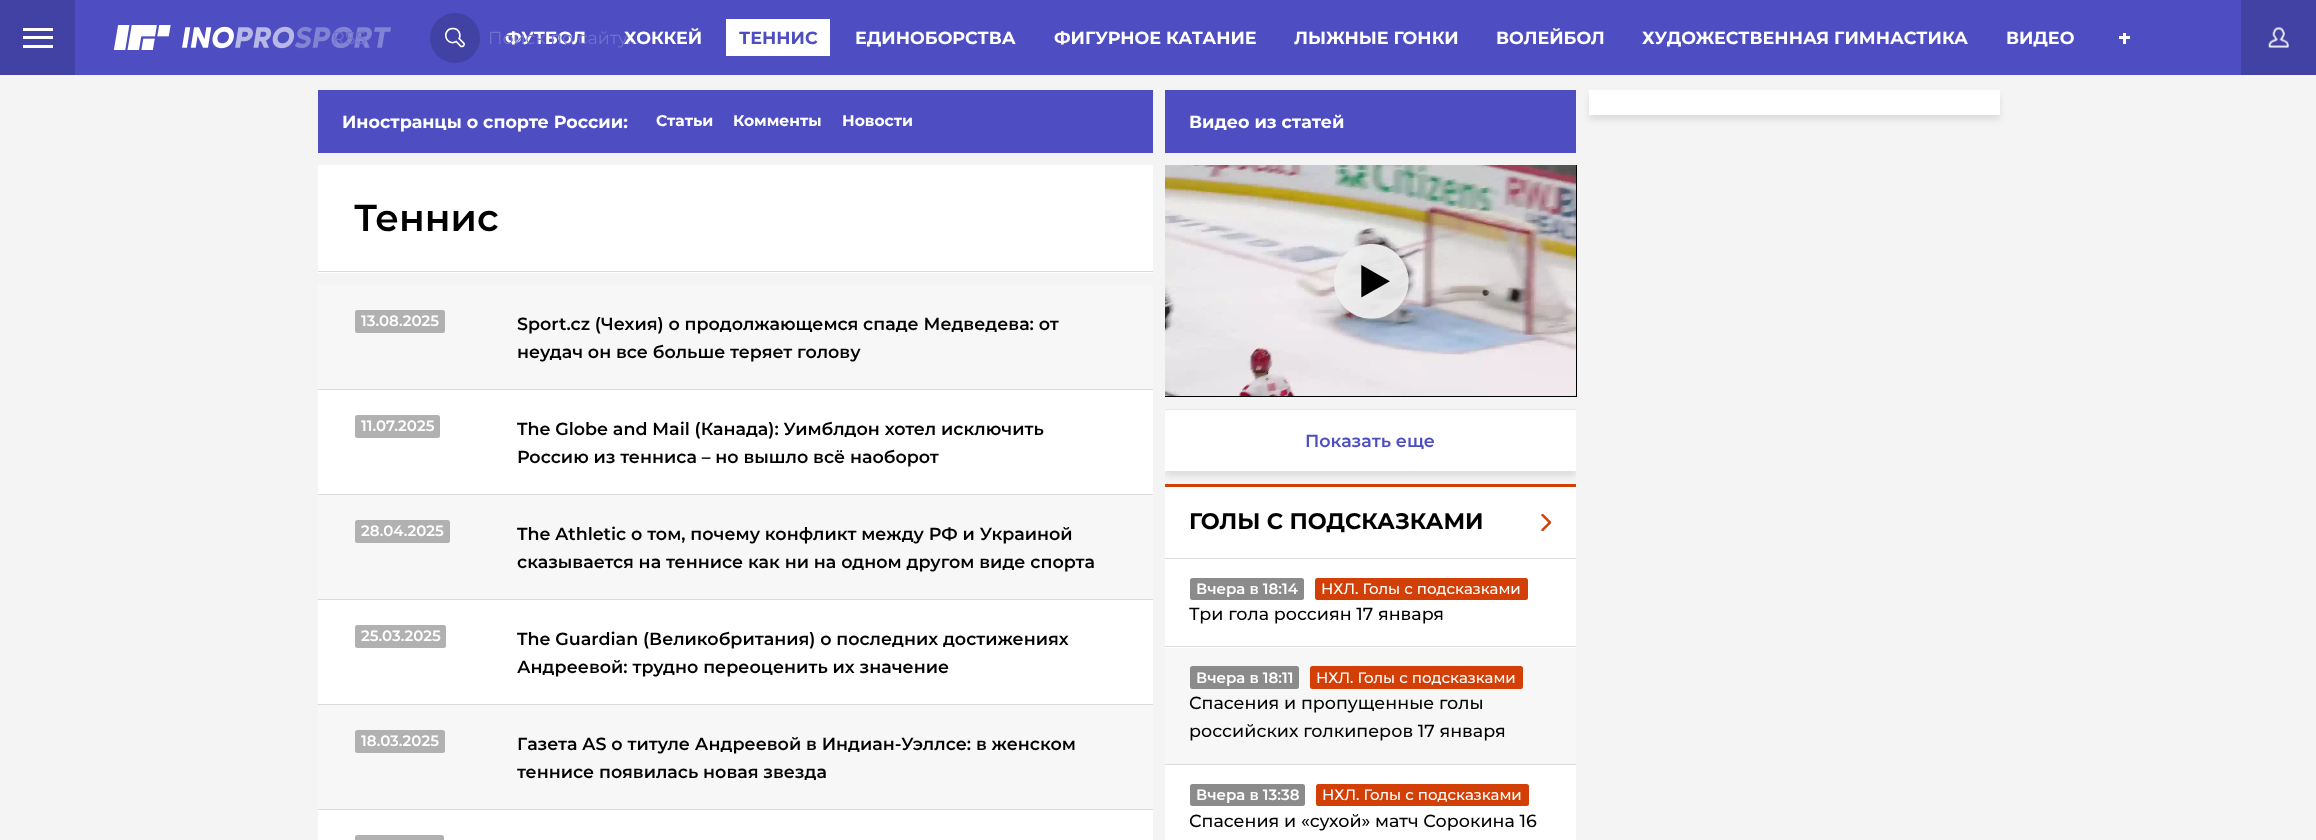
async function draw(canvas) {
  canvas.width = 2316
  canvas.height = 840
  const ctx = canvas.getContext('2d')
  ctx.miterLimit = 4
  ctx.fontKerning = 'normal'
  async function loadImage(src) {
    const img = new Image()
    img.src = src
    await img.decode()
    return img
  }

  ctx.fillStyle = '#f4f4f4'
  ctx.fillRect(0, 0, 2316, 840)
  ctx.fillStyle = '#4e4dc2'
  ctx.fillRect(75, 0, 2166, 75)
  ctx.drawImage(await loadImage('image0.png'), 113, 25, 278, 25)
  ctx.font = 'bold 17.5px Montserrat'
  ctx.fillStyle = '#fff'
  ctx.fillText('ФУТБОЛ', 505, 44)
  ctx.fillText('ХОККЕЙ', 624, 44)
  ctx.fillRect(726, 19, 104, 37)
  ctx.fillStyle = '#4e4dc2'
  ctx.fillText('ТЕННИС', 739, 44)
  ctx.fillStyle = '#fff'
  ctx.fillText('ЕДИНОБОРСТВА', 855, 44)
  ctx.fillText('ФИГУРНОЕ КАТАНИЕ', 1054, 44)
  ctx.fillText('ЛЫЖНЫЕ ГОНКИ', 1294, 44)
  ctx.fillText('ВОЛЕЙБОЛ', 1496, 44)
  ctx.fillText('ХУДОЖЕСТВЕННАЯ ГИМНАСТИКА', 1642, 44)
  ctx.fillText('ВИДЕО', 2006, 44)
  ctx.fillRect(2119, 36, 11, 3)
  ctx.fillRect(2123, 33, 3, 11)
  ctx.fillStyle = '#4242a5'
  ctx.fillRect(2241, 0, 75, 75)
  ctx.drawImage(await loadImage('image1.png'), 2268, 27, 21, 21)
  ctx.fillRect(0, 0, 75, 75)
  ctx.fillStyle = '#fff'
  ctx.fillRect(23, 36, 30, 3)
  ctx.fillRect(23, 28, 30, 3)
  ctx.fillRect(23, 45, 30, 3)
  ctx.font = '17.5px Montserrat'
  ctx.fillStyle = '#7271ce'
  ctx.fillText('RSS', 332, 44)
  ctx.fillStyle = '#4242a5'
  ctx.beginPath()
  ctx.arc(455, 38, 25, 0, 2 * Math.PI)
  ctx.fill()
  ctx.drawImage(await loadImage('image2.png'), 445, 27, 20, 21)
  ctx.fillStyle = '#7271ce'
  ctx.fillText('Поиск по сайту...', 488, 44)
  ctx.fillStyle = '#fff'
  ctx.fillRect(1589, 90, 411, 25)
  ctx.save()
  ctx.beginPath()
  ctx.moveTo(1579, 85)
  ctx.lineTo(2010, 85)
  ctx.lineTo(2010, 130)
  ctx.lineTo(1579, 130)
  ctx.closePath()
  ctx.moveTo(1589, 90)
  ctx.lineTo(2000, 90)
  ctx.lineTo(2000, 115)
  ctx.lineTo(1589, 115)
  ctx.closePath()
  ctx.clip('evenodd')
  ctx.fillStyle = '#00000017'
  ctx.filter = 'blur(3px)'
  ctx.beginPath()
  ctx.rect(1589, 95, 411, 25)
  ctx.fill()
  ctx.filter = 'none'
  ctx.restore()
  ctx.fillStyle = '#4e4dc2'
  ctx.fillRect(318, 90, 835, 63)
  ctx.font = 'bold 17.5px Montserrat'
  ctx.fillStyle = '#fff'
  ctx.fillText('Иностранцы о спорте России:', 342, 128)
  ctx.font = 'bold 15.5px Montserrat'
  ctx.fillText('Статьи', 656, 126)
  ctx.fillText('Комменты', 733, 126)
  ctx.fillText('Новости', 842, 126)
  ctx.fillRect(318, 165, 835, 108)
  ctx.fillStyle = '#dbdbdb'
  ctx.fillRect(318, 271, 835, 1)
  ctx.font = '600 37.5px Montserrat'
  ctx.fillStyle = '#000'
  ctx.fillText('Теннис', 354, 231)
  ctx.fillStyle = '#f7f7f7'
  ctx.fillRect(318, 285, 835, 104)
  ctx.fillStyle = '#dbdbdb'
  ctx.fillRect(318, 389, 835, 1)
  ctx.fillStyle = '#b1b1b1'
  ctx.beginPath()
  ctx.roundRect(355, 310, 90, 23, 2.5)
  ctx.fill()
  ctx.font = '600 15px Montserrat'
  ctx.fillStyle = '#fff'
  ctx.fillText('13.08.2025', 361, 326)
  ctx.font = '600 17.5px Montserrat'
  ctx.fillStyle = '#000'
  ctx.fillText('Sport.cz (Чехия) о продолжающемся спаде Медведева: от', 517, 330)
  ctx.fillText('неудач он все больше теряет голову', 517, 358)
  ctx.fillStyle = '#fff'
  ctx.fillRect(318, 390, 835, 104)
  ctx.fillStyle = '#dbdbdb'
  ctx.fillRect(318, 494, 835, 1)
  ctx.fillStyle = '#b1b1b1'
  ctx.beginPath()
  ctx.roundRect(355, 415, 85, 23, 2.5)
  ctx.fill()
  ctx.font = '600 15px Montserrat'
  ctx.fillStyle = '#fff'
  ctx.fillText('11.07.2025', 361, 431)
  ctx.font = '600 17.5px Montserrat'
  ctx.fillStyle = '#000'
  ctx.fillText('The Globe and Mail (Канада): Уимблдон хотел исключить', 517, 435)
  ctx.fillText('Россию из тенниса – но вышло всё наоборот', 517, 463)
  ctx.fillStyle = '#f7f7f7'
  ctx.fillRect(318, 495, 835, 104)
  ctx.fillStyle = '#dbdbdb'
  ctx.fillRect(318, 599, 835, 1)
  ctx.fillStyle = '#b1b1b1'
  ctx.beginPath()
  ctx.roundRect(355, 520, 95, 23, 2.5)
  ctx.fill()
  ctx.font = '600 15px Montserrat'
  ctx.fillStyle = '#fff'
  ctx.fillText('28.04.2025', 361, 536)
  ctx.font = '600 17.5px Montserrat'
  ctx.fillStyle = '#000'
  ctx.fillText('The Athletic о том, почему конфликт между РФ и Украиной', 517, 540)
  ctx.fillText('сказывается на теннисе как ни на одном другом виде спорта', 517, 568)
  ctx.fillStyle = '#fff'
  ctx.fillRect(318, 600, 835, 104)
  ctx.fillStyle = '#dbdbdb'
  ctx.fillRect(318, 704, 835, 1)
  ctx.fillStyle = '#b1b1b1'
  ctx.beginPath()
  ctx.roundRect(355, 625, 91, 23, 2.5)
  ctx.fill()
  ctx.font = '600 15px Montserrat'
  ctx.fillStyle = '#fff'
  ctx.fillText('25.03.2025', 361, 641)
  ctx.font = '600 17.5px Montserrat'
  ctx.fillStyle = '#000'
  ctx.fillText('The Guardian (Великобритания) о последних достижениях', 517, 645)
  ctx.fillText('Андреевой: трудно переоценить их значение', 517, 673)
  ctx.fillStyle = '#f7f7f7'
  ctx.fillRect(318, 705, 835, 104)
  ctx.fillStyle = '#dbdbdb'
  ctx.fillRect(318, 809, 835, 1)
  ctx.fillStyle = '#b1b1b1'
  ctx.beginPath()
  ctx.roundRect(355, 730, 90, 23, 2.5)
  ctx.fill()
  ctx.font = '600 15px Montserrat'
  ctx.fillStyle = '#fff'
  ctx.fillText('18.03.2025', 361, 746)
  ctx.font = '600 17.5px Montserrat'
  ctx.fillStyle = '#000'
  ctx.fillText('Газета AS о титуле Андреевой в Индиан-Уэллсе: в женском', 517, 750)
  ctx.fillText('теннисе появилась новая звезда', 517, 778)
  ctx.fillStyle = '#fff'
  ctx.fillRect(318, 810, 835, 30)
  ctx.fillStyle = '#b1b1b1'
  ctx.beginPath()
  ctx.roundRect(355, 835, 89, 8, 2.5)
  ctx.fill()
  ctx.fillStyle = '#4e4dc2'
  ctx.fillRect(1165, 90, 411, 63)
  ctx.font = 'bold 17.5px Montserrat'
  ctx.fillStyle = '#fff'
  ctx.fillText('Видео из статей', 1189, 128)
  ctx.drawImage(await loadImage('image3.png'), 1165, 165, 412, 232)
  ctx.save()
  ctx.beginPath()
  ctx.rect(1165, 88, 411, 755)
  ctx.clip()
  ctx.fillStyle = '#00000017'
  ctx.filter = 'blur(3px)'
  ctx.beginPath()
  ctx.rect(1165, 414, 411, 62)
  ctx.fill()
  ctx.filter = 'none'
  ctx.restore()
  ctx.fillRect(1165, 410, 411, 61)
  ctx.fillStyle = '#e8e8e8'
  ctx.fillRect(1165, 409, 411, 1)
  ctx.font = '600 17.5px Montserrat'
  ctx.fillStyle = '#4e4dc2'
  ctx.fillText('Показать еще', 1305, 447)
  ctx.fillStyle = '#fff'
  ctx.fillRect(1165, 487, 411, 71)
  ctx.fillStyle = '#d34007'
  ctx.fillRect(1165, 484, 411, 3)
  ctx.fillStyle = '#dbdbdb'
  ctx.fillRect(1165, 558, 411, 1)
  ctx.font = 'bold 22.5px Montserrat'
  ctx.fillStyle = '#000'
  ctx.fillText('ГОЛЫ С ПОДСКАЗКАМИ', 1189, 529)
  ctx.drawImage(await loadImage('image4.png'), 1541, 514, 10, 17)
  ctx.fillStyle = '#fff'
  ctx.fillRect(1165, 559, 411, 89)
  ctx.fillStyle = '#dbdbdb'
  ctx.fillRect(1165, 646, 411, 1)
  ctx.fillStyle = '#8c8b8b'
  ctx.beginPath()
  ctx.roundRect(1190, 578, 114, 22, 2.5)
  ctx.fill()
  ctx.font = '600 15px Montserrat'
  ctx.fillStyle = '#fff'
  ctx.fillText('Вчера в 18:14', 1196, 594)
  ctx.fillStyle = '#d34007'
  ctx.beginPath()
  ctx.roundRect(1315, 578, 213, 22, 2.5)
  ctx.fill()
  ctx.font = '500 15px Montserrat'
  ctx.fillStyle = '#fff'
  ctx.fillText('НХЛ. Голы с подсказками', 1321, 594)
  ctx.font = '500 17.5px Montserrat'
  ctx.fillStyle = '#000'
  ctx.fillText('Три гола россиян 17 января', 1189, 620)
  ctx.fillStyle = '#f7f7f7'
  ctx.fillRect(1165, 648, 411, 116)
  ctx.fillStyle = '#dbdbdb'
  ctx.fillRect(1165, 764, 411, 1)
  ctx.fillStyle = '#8c8b8b'
  ctx.beginPath()
  ctx.roundRect(1190, 666, 109, 23, 2.5)
  ctx.fill()
  ctx.font = '600 15px Montserrat'
  ctx.fillStyle = '#fff'
  ctx.fillText('Вчера в 18:11', 1196, 683)
  ctx.fillStyle = '#d34007'
  ctx.beginPath()
  ctx.roundRect(1310, 666, 213, 23, 2.5)
  ctx.fill()
  ctx.font = '500 15px Montserrat'
  ctx.fillStyle = '#fff'
  ctx.fillText('НХЛ. Голы с подсказками', 1316, 683)
  ctx.font = '500 17.5px Montserrat'
  ctx.fillStyle = '#000'
  ctx.fillText('Спасения и пропущенные голы', 1189, 709)
  ctx.fillText('российских голкиперов 17 января', 1189, 737)
  ctx.fillStyle = '#fff'
  ctx.fillRect(1165, 765, 411, 75)
  ctx.fillStyle = '#8c8b8b'
  ctx.beginPath()
  ctx.roundRect(1190, 784, 115, 22, 2.5)
  ctx.fill()
  ctx.font = '600 15px Montserrat'
  ctx.fillStyle = '#fff'
  ctx.fillText('Вчера в 13:38', 1196, 800)
  ctx.fillStyle = '#d34007'
  ctx.beginPath()
  ctx.roundRect(1316, 784, 213, 22, 2.5)
  ctx.fill()
  ctx.font = '500 15px Montserrat'
  ctx.fillStyle = '#fff'
  ctx.fillText('НХЛ. Голы с подсказками', 1322, 800)
  ctx.font = '500 17.5px Montserrat'
  ctx.fillStyle = '#000'
  ctx.fillText('Спасения и «сухой» матч Сорокина 16', 1189, 827)
}

draw(document.querySelector('canvas'))
